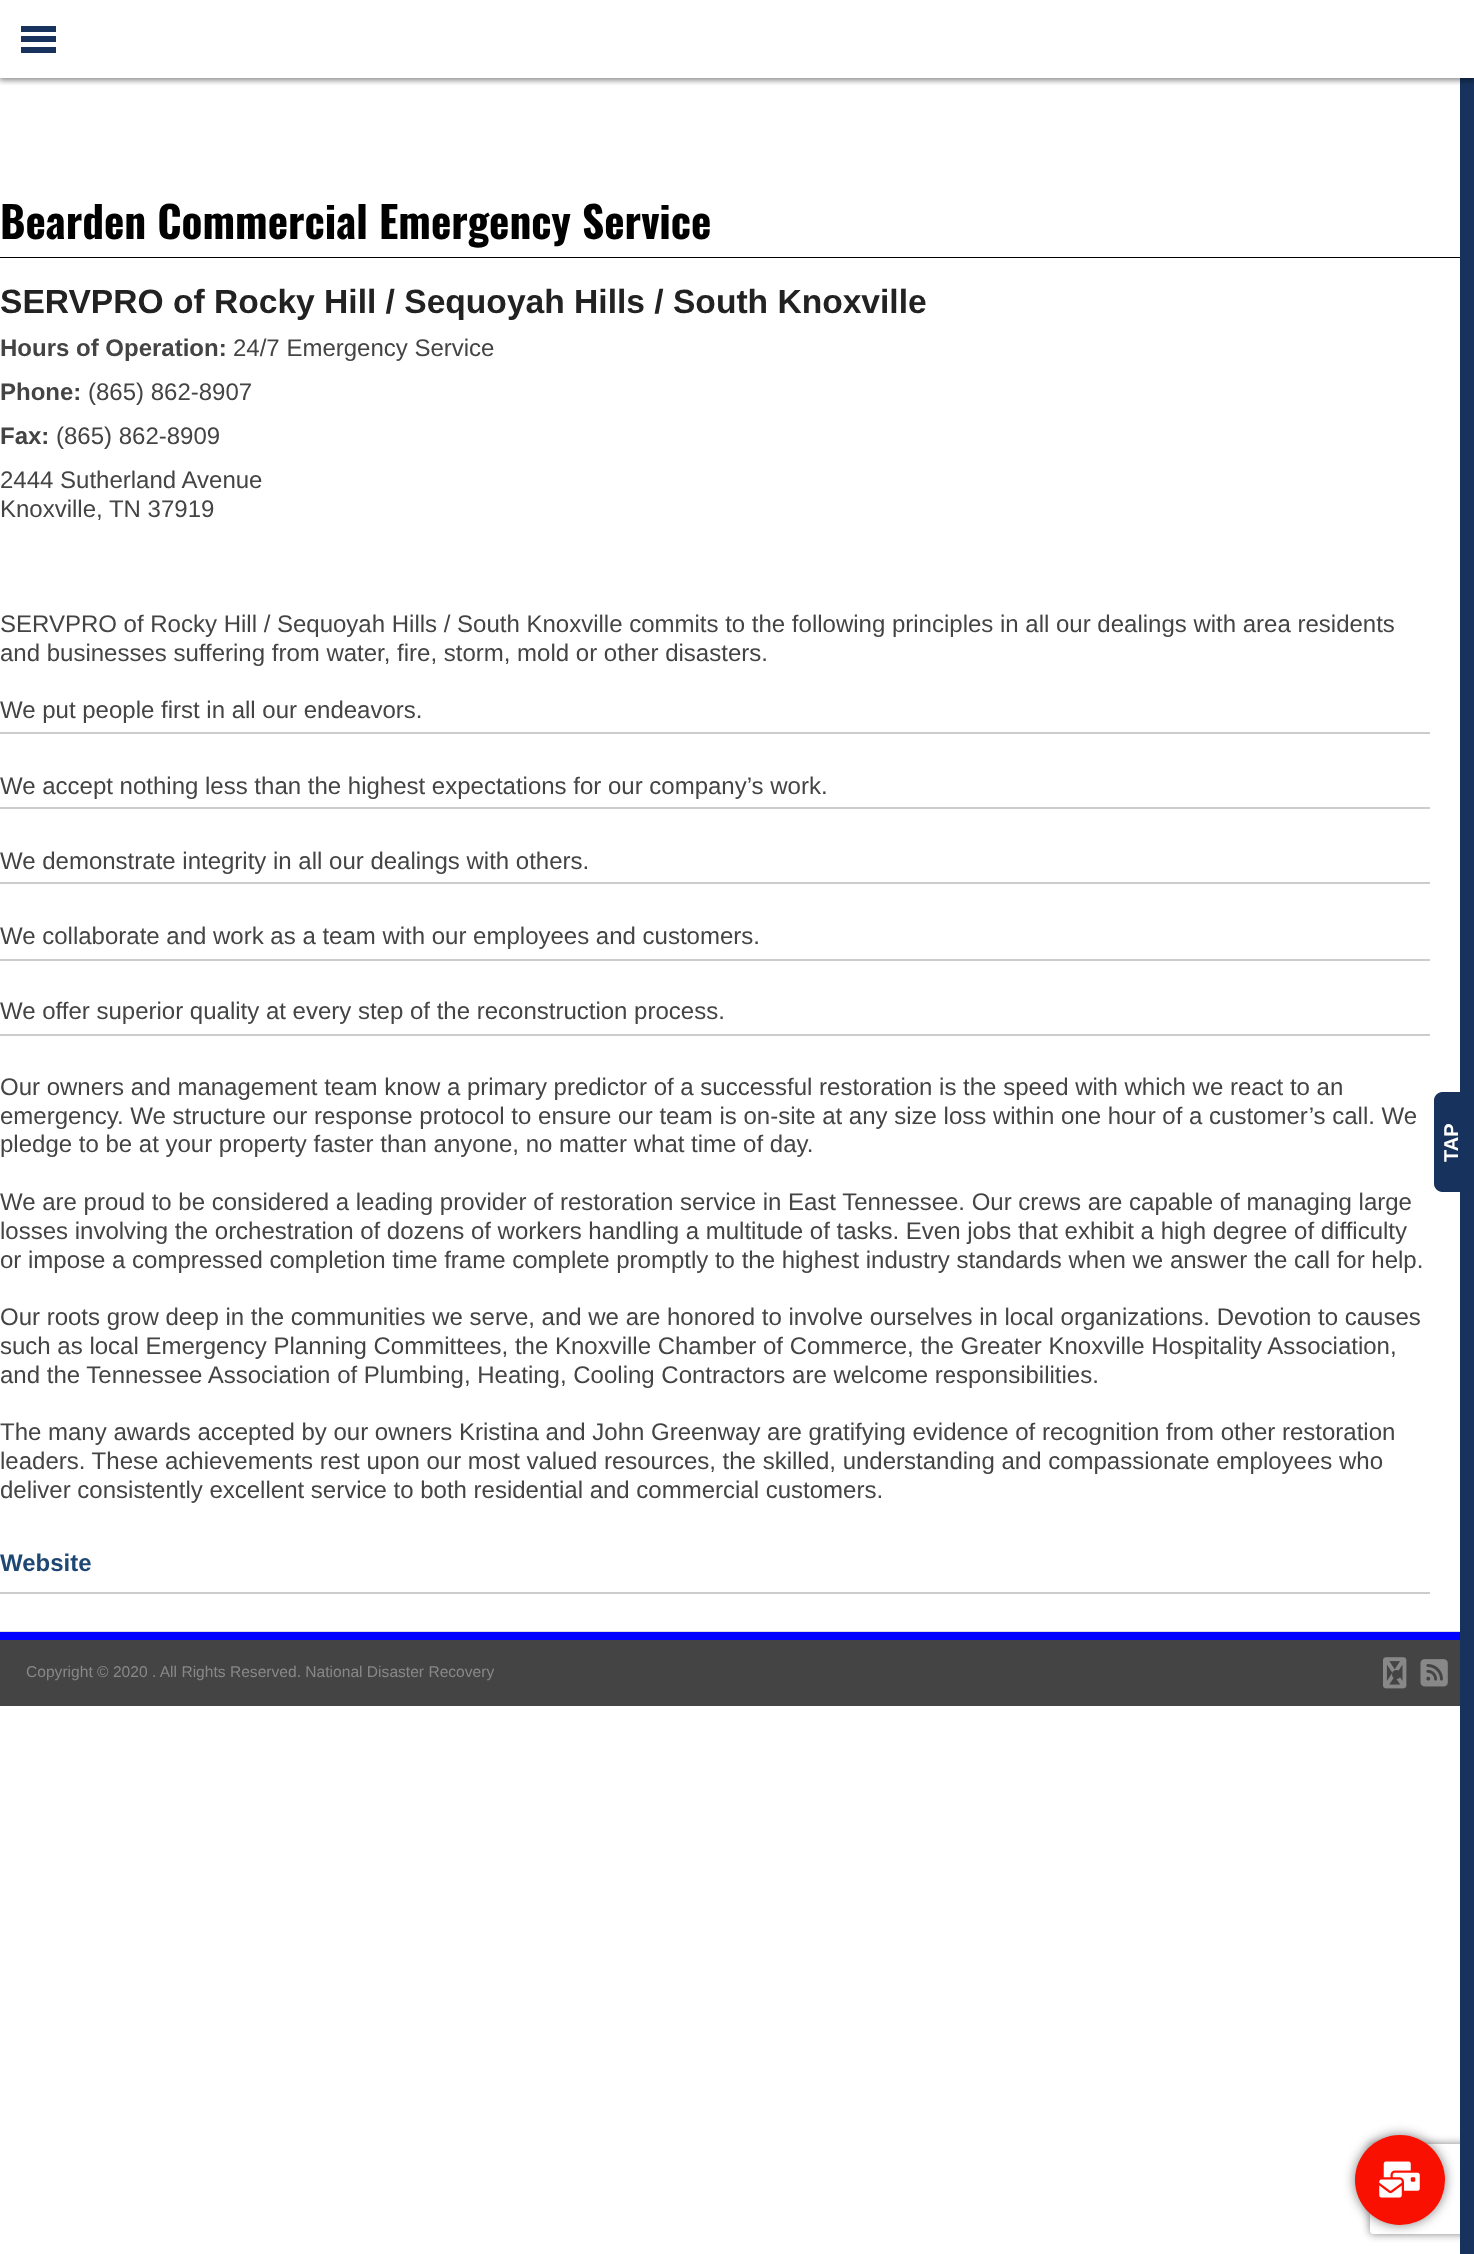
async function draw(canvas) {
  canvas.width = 1474
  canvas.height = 2254
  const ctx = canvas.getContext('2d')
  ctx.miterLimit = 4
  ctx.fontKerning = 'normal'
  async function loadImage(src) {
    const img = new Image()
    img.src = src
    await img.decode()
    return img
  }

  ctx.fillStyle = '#fff'
  ctx.fillRect(0, 0, 1474, 2254)
  ctx.fillStyle = '#00000080'
  ctx.filter = 'blur(6px)'
  ctx.beginPath()
  ctx.roundRect(1355, 2135, 90, 90, 45)
  ctx.fill()
  ctx.filter = 'none'
  ctx.save()
  ctx.beginPath()
  ctx.moveTo(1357, 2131)
  ctx.lineTo(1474, 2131)
  ctx.lineTo(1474, 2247)
  ctx.lineTo(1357, 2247)
  ctx.closePath()
  ctx.moveTo(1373, 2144)
  ctx.lineTo(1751, 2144)
  ctx.bezierCurveTo(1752.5, 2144, 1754, 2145.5, 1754, 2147)
  ctx.lineTo(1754, 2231)
  ctx.bezierCurveTo(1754, 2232.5, 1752.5, 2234, 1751, 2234)
  ctx.lineTo(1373, 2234)
  ctx.bezierCurveTo(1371.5, 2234, 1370, 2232.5, 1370, 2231)
  ctx.lineTo(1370, 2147)
  ctx.bezierCurveTo(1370, 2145.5, 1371.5, 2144, 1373, 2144)
  ctx.closePath()
  ctx.clip('evenodd')
  ctx.fillStyle = '#808080'
  ctx.filter = 'blur(4px)'
  ctx.beginPath()
  ctx.roundRect(1370, 2144, 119, 90, 3)
  ctx.fill()
  ctx.filter = 'none'
  ctx.restore()
  ctx.fillStyle = '#17325c'
  ctx.fillRect(1460, 78, 14, 2176)
  ctx.save()
  ctx.beginPath()
  ctx.rect(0, 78, 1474, 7)
  ctx.clip()
  ctx.fillStyle = '#00000080'
  ctx.filter = 'blur(3px)'
  ctx.beginPath()
  ctx.rect(-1, 2, 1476, 78)
  ctx.fill()
  ctx.filter = 'none'
  ctx.restore()
  ctx.fillRect(21, 26, 35, 6)
  ctx.fillRect(21, 36, 35, 6)
  ctx.fillRect(21, 47, 35, 6)
  ctx.fillStyle = '#000'
  ctx.fillRect(0, 257, 1460, 1)
  ctx.font = 'bold 43.25px Oswald'
  ctx.fillText('Bearden Commercial Emergency Service', 0, 239)
  ctx.fillStyle = '#ddd'
  ctx.fillRect(0, 1631, 1460, 1)
  ctx.fillStyle = '#ccc'
  ctx.fillRect(0, 1592, 1430, 2)
  ctx.font = 'bold 33.6px Liberation Sans'
  ctx.fillStyle = '#222'
  ctx.fillText('SERVPRO of Rocky Hill / Sequoyah Hills / South Knoxville', 0, 313)
  ctx.font = 'bold 24px Liberation Sans'
  ctx.fillStyle = '#444'
  ctx.fillText('Hours of Operation:', 0, 356)
  ctx.font = '24px Liberation Sans'
  ctx.fillText('24/7 Emergency Service', 233, 356)
  ctx.font = 'bold 24px Liberation Sans'
  ctx.fillText('Phone:', 0, 400)
  ctx.font = '24px Liberation Sans'
  ctx.fillText('(865) 862-8907', 88, 400)
  ctx.font = 'bold 24px Liberation Sans'
  ctx.fillText('Fax:', 0, 444)
  ctx.font = '24px Liberation Sans'
  ctx.fillText('(865) 862-8909', 56, 444)
  ctx.fillText('2444 Sutherland Avenue', 0, 488)
  ctx.fillText('Knoxville, TN 37919', 0, 517)
  ctx.fillText('SERVPRO of Rocky Hill / Sequoyah Hills / South Knoxville commits to the following principles in all our dealings with area residents', 0, 632)
  ctx.fillText('and businesses suffering from water, fire, storm, mold or other disasters.', 0, 661)
  ctx.fillStyle = '#ccc'
  ctx.fillRect(0, 732, 1430, 2)
  ctx.fillStyle = '#444'
  ctx.fillText('We put people first in all our endeavors.', 0, 718)
  ctx.fillStyle = '#ccc'
  ctx.fillRect(0, 807, 1430, 2)
  ctx.fillStyle = '#444'
  ctx.fillText('We accept nothing less than the highest expectations for our company’s work.', 0, 794)
  ctx.fillStyle = '#ccc'
  ctx.fillRect(0, 882, 1430, 2)
  ctx.fillStyle = '#444'
  ctx.fillText('We demonstrate integrity in all our dealings with others.', 0, 869)
  ctx.fillStyle = '#ccc'
  ctx.fillRect(0, 959, 1430, 2)
  ctx.fillStyle = '#444'
  ctx.fillText('We collaborate and work as a team with our employees and customers.', 0, 944)
  ctx.fillStyle = '#ccc'
  ctx.fillRect(0, 1034, 1430, 2)
  ctx.fillStyle = '#444'
  ctx.fillText('We offer superior quality at every step of the reconstruction process.', 0, 1019)
  ctx.fillText('Our owners and management team know a primary predictor of a successful restoration is the speed with which we react to an', 0, 1095)
  ctx.fillText('emergency. We structure our response protocol to ensure our team is on-site at any size loss within one hour of a customer’s call. We', 0, 1124)
  ctx.fillText('pledge to be at your property faster than anyone, no matter what time of day.', 0, 1152)
  ctx.fillText('We are proud to be considered a leading provider of restoration service in East Tennessee. Our crews are capable of managing large', 0, 1210)
  ctx.fillText('losses involving the orchestration of dozens of workers handling a multitude of tasks. Even jobs that exhibit a high degree of difficulty', 0, 1239)
  ctx.fillText('or impose a compressed completion time frame complete promptly to the highest industry standards when we answer the call for help.', 0, 1268)
  ctx.fillText('Our roots grow deep in the communities we serve, and we are honored to involve ourselves in local organizations. Devotion to causes', 0, 1325)
  ctx.fillText('such as local Emergency Planning Committees, the Knoxville Chamber of Commerce, the Greater Knoxville Hospitality Association,', 0, 1354)
  ctx.fillText('and the Tennessee Association of Plumbing, Heating, Cooling Contractors are welcome responsibilities.', 0, 1383)
  ctx.fillText('The many awards accepted by our owners Kristina and John Greenway are gratifying evidence of recognition from other restoration', 0, 1440)
  ctx.fillText('leaders. These achievements rest upon our most valued resources, the skilled, understanding and compassionate employees who', 0, 1469)
  ctx.fillText('deliver consistently excellent service to both residential and commercial customers.', 0, 1498)
  ctx.font = 'bold 24px Liberation Sans'
  ctx.fillStyle = '#1f4773'
  ctx.fillText('Website', 0, 1571)
  ctx.fillStyle = '#17325c'
  ctx.beginPath()
  ctx.moveTo(1434, 1184)
  ctx.lineTo(1434, 1100)
  ctx.bezierCurveTo(1434, 1096, 1438, 1092, 1442, 1092)
  ctx.lineTo(1462, 1092)
  ctx.bezierCurveTo(1466, 1092, 1470, 1096, 1470, 1100)
  ctx.lineTo(1470, 1184)
  ctx.bezierCurveTo(1470, 1188, 1466, 1192, 1462, 1192)
  ctx.lineTo(1442, 1192)
  ctx.bezierCurveTo(1438, 1192, 1434, 1188, 1434, 1184)
  ctx.closePath()
  ctx.fill()
  ctx.font = 'bold 20px Liberation Sans'
  ctx.fillStyle = '#fff'
  ctx.save()
  ctx.translate(1458, 1162)
  ctx.rotate(-90 * Math.PI / 180)
  ctx.fillText('TAP', 0, 0)
  ctx.restore()
  ctx.fillStyle = '#00f'
  ctx.fillRect(0, 1632, 1460, 8)
  ctx.fillStyle = '#444'
  ctx.fillRect(0, 1640, 1460, 66)
  ctx.font = '15.6px Liberation Sans'
  ctx.fillStyle = '#888'
  ctx.fillText('Copyright © 2020 . All Rights Reserved. National Disaster Recovery', 26, 1677)
  ctx.drawImage(await loadImage('image0.png'), 1383, 1657, 24, 32)
  ctx.fillStyle = '#444'
  ctx.beginPath()
  ctx.arc(1396.5, 1674.5, 4.5, 0, 2 * Math.PI)
  ctx.fill()
  ctx.drawImage(await loadImage('image1.png'), 1420, 1659, 28, 28)
  ctx.fillStyle = '#f91000'
  ctx.beginPath()
  ctx.arc(1400, 2180, 45, 0, 2 * Math.PI)
  ctx.fill()
  ctx.drawImage(await loadImage('image2.png'), 1379, 2161, 41, 37)
}

draw(document.querySelector('canvas'))
